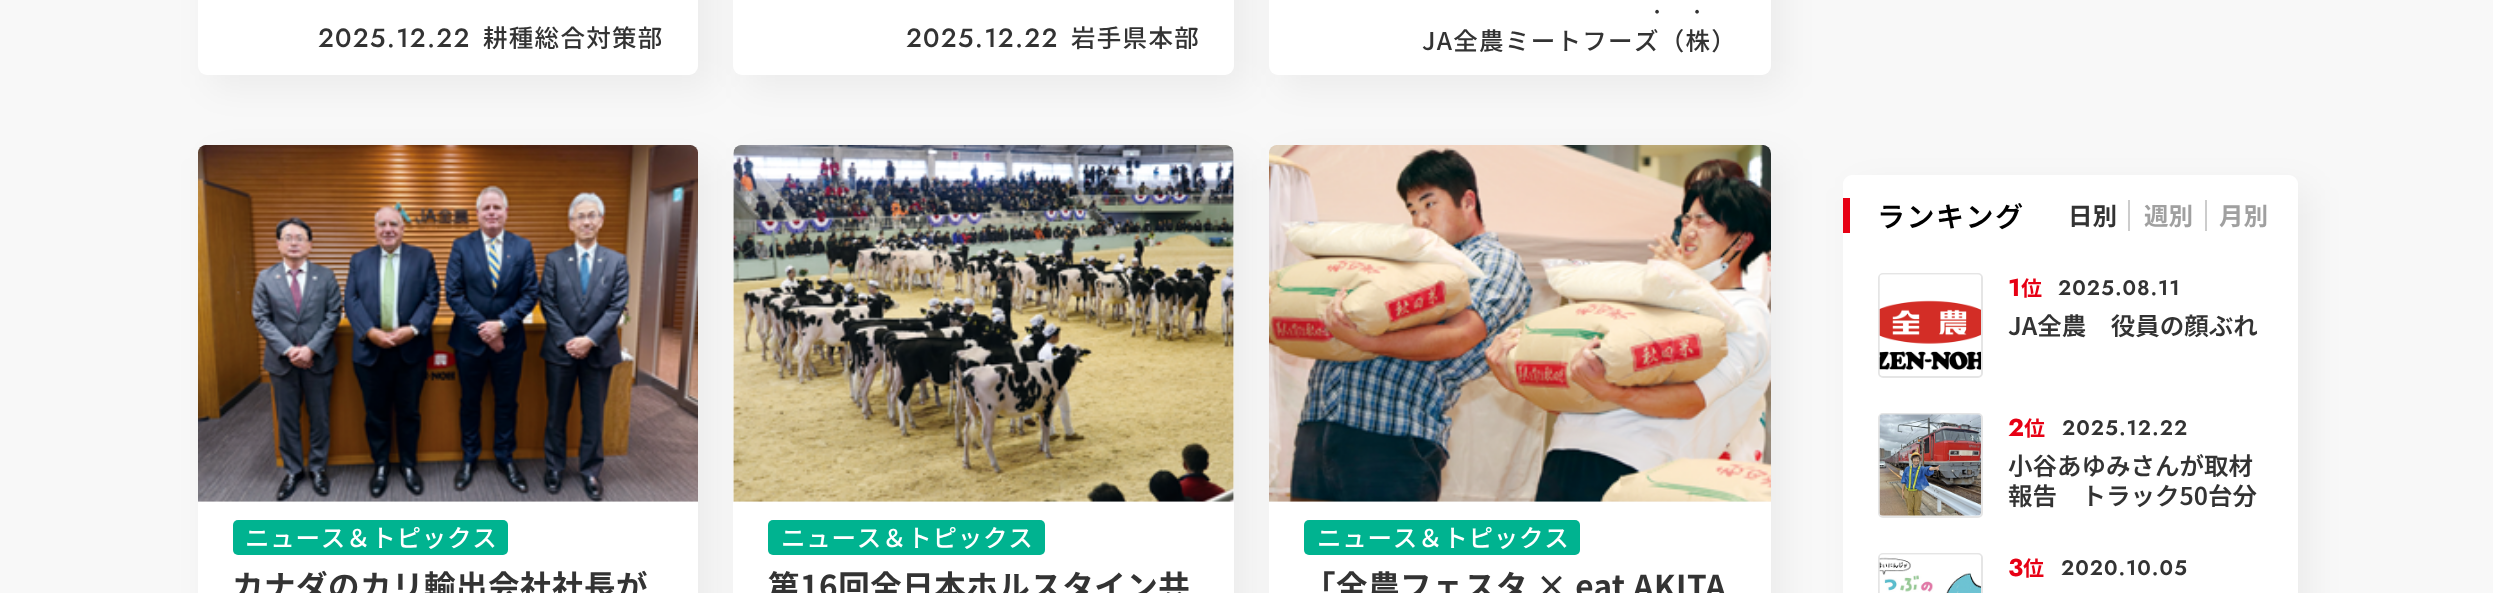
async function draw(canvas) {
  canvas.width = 2493
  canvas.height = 593
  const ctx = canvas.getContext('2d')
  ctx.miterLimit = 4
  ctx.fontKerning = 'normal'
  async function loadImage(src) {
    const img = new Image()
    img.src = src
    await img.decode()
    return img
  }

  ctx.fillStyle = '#f8f8f8'
  ctx.fillRect(0, 0, 2493, 593)
  ctx.fillStyle = '#0000000d'
  ctx.filter = 'blur(17.5px)'
  ctx.beginPath()
  ctx.roundRect(210, -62, 501, 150, 9)
  ctx.fill()
  ctx.filter = 'none'
  ctx.fillStyle = '#fff'
  ctx.beginPath()
  ctx.roundRect(198, -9, 500, 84, 9)
  ctx.fill()
  ctx.letterSpacing = '1.25px'
  ctx.font = '500 26.25px Jost'
  ctx.fillStyle = '#333'
  ctx.fillText('2025.12.22', 318, 47)
  ctx.letterSpacing = '1.3px'
  ctx.font = '500 24.5px Noto Sans JP'
  ctx.fillText('耕種総合対策部', 483, 47)
  ctx.fillStyle = '#0000000d'
  ctx.filter = 'blur(17.5px)'
  ctx.beginPath()
  ctx.roundRect(746, -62, 500, 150, 9)
  ctx.fill()
  ctx.filter = 'none'
  ctx.fillStyle = '#fff'
  ctx.beginPath()
  ctx.roundRect(733, -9, 501, 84, 9)
  ctx.fill()
  ctx.letterSpacing = '1.25px'
  ctx.font = '500 26.25px Jost'
  ctx.fillStyle = '#333'
  ctx.fillText('2025.12.22', 906, 47)
  ctx.letterSpacing = '1.3px'
  ctx.font = '500 24.5px Noto Sans JP'
  ctx.fillText('岩手県本部', 1071, 47)
  ctx.fillStyle = '#0000000d'
  ctx.filter = 'blur(17.5px)'
  ctx.beginPath()
  ctx.roundRect(1281, -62, 502, 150, 9)
  ctx.fill()
  ctx.filter = 'none'
  ctx.fillStyle = '#fff'
  ctx.beginPath()
  ctx.roundRect(1269, -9, 502, 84, 9)
  ctx.fill()
  ctx.letterSpacing = '1.25px'
  ctx.font = '500 26.25px Jost'
  ctx.fillStyle = '#333'
  ctx.fillText('.', 1653, 13)
  ctx.fillText('.', 1693, 13)
  ctx.letterSpacing = '1.3px'
  ctx.font = '500 24.5px Noto Sans JP'
  ctx.fillText('JA全農ミートフーズ（株）', 1422, 50)
  ctx.fillStyle = '#0000000d'
  ctx.filter = 'blur(17.5px)'
  ctx.beginPath()
  ctx.roundRect(210, 158, 501, 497, 9)
  ctx.fill()
  ctx.filter = 'none'
  ctx.fillStyle = '#fff'
  ctx.beginPath()
  ctx.roundRect(198, 145, 500, 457, 9)
  ctx.fill()
  ctx.fillStyle = '#f8f8f8'
  ctx.beginPath()
  ctx.roundRect(198, 145, 500, 357, [9, 9, 0, 0])
  ctx.fill()
  ctx.drawImage(await loadImage('image0.png'), 198, 145, 500, 357)
  ctx.fillStyle = '#00b390'
  ctx.beginPath()
  ctx.roundRect(233, 520, 275, 35, 5)
  ctx.fill()
  ctx.letterSpacing = '0.75px'
  ctx.fillStyle = '#fff'
  ctx.fillText('ニュース＆トピックス', 245, 547)
  ctx.letterSpacing = '0.5px'
  ctx.font = 'bold 31.5px Noto Sans JP'
  ctx.fillStyle = '#333'
  ctx.fillText('カナダのカリ輸出会社社長が', 232, 598)
  ctx.fillStyle = '#0000000d'
  ctx.filter = 'blur(17.5px)'
  ctx.beginPath()
  ctx.roundRect(746, 158, 500, 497, 9)
  ctx.fill()
  ctx.filter = 'none'
  ctx.fillStyle = '#fff'
  ctx.beginPath()
  ctx.roundRect(733, 145, 501, 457, 9)
  ctx.fill()
  ctx.fillStyle = '#f8f8f8'
  ctx.beginPath()
  ctx.roundRect(733, 145, 501, 357, [9, 9, 0, 0])
  ctx.fill()
  ctx.drawImage(await loadImage('image1.png'), 733, 145, 501, 357)
  ctx.fillStyle = '#00b390'
  ctx.beginPath()
  ctx.roundRect(768, 520, 277, 35, 5)
  ctx.fill()
  ctx.letterSpacing = '0.75px'
  ctx.font = '500 24.5px Noto Sans JP'
  ctx.fillStyle = '#fff'
  ctx.fillText('ニュース＆トピックス', 781, 547)
  ctx.letterSpacing = '0.5px'
  ctx.font = 'bold 31.5px Noto Sans JP'
  ctx.fillStyle = '#333'
  ctx.fillText('第16回全日本ホルスタイン共', 768, 598)
  ctx.fillStyle = '#0000000d'
  ctx.filter = 'blur(17.5px)'
  ctx.beginPath()
  ctx.roundRect(1281, 158, 502, 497, 9)
  ctx.fill()
  ctx.filter = 'none'
  ctx.fillStyle = '#fff'
  ctx.beginPath()
  ctx.roundRect(1269, 145, 502, 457, 9)
  ctx.fill()
  ctx.fillStyle = '#f8f8f8'
  ctx.beginPath()
  ctx.roundRect(1269, 145, 502, 357, [9, 9, 0, 0])
  ctx.fill()
  ctx.drawImage(await loadImage('image2.png'), 1269, 145, 502, 357)
  ctx.fillStyle = '#00b390'
  ctx.beginPath()
  ctx.roundRect(1304, 520, 276, 35, 5)
  ctx.fill()
  ctx.letterSpacing = '0.75px'
  ctx.font = '500 24.5px Noto Sans JP'
  ctx.fillStyle = '#fff'
  ctx.fillText('ニュース＆トピックス', 1317, 547)
  ctx.letterSpacing = '0.5px'
  ctx.font = 'bold 31.5px Noto Sans JP'
  ctx.fillStyle = '#333'
  ctx.fillText('「全農フェスタ × eat AKITA', 1304, 598)
  ctx.fillStyle = '#0000000d'
  ctx.filter = 'blur(17.5px)'
  ctx.beginPath()
  ctx.roundRect(1855, 187, 455, 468, 9)
  ctx.fill()
  ctx.filter = 'none'
  ctx.fillStyle = '#fff'
  ctx.beginPath()
  ctx.roundRect(1843, 175, 455, 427, 9)
  ctx.fill()
  ctx.fillStyle = '#e70014'
  ctx.fillRect(1843, 198, 7, 35)
  ctx.letterSpacing = '1.5px'
  ctx.font = '600 28px Noto Sans JP'
  ctx.fillStyle = '#000'
  ctx.fillText('ランキング', 1877, 227)
  ctx.letterSpacing = '0px'
  ctx.font = 'bold 24.5px Noto Sans JP'
  ctx.fillStyle = '#333'
  ctx.fillText('日別', 2068, 225)
  ctx.fillStyle = '#ccc'
  ctx.fillRect(2128, 200, 2, 31)
  ctx.fillStyle = '#a0a0a0'
  ctx.fillText('週別', 2144, 225)
  ctx.fillStyle = '#ccc'
  ctx.fillRect(2205, 200, 2, 31)
  ctx.fillStyle = '#a0a0a0'
  ctx.fillText('月別', 2219, 225)
  ctx.beginPath()
  ctx.roundRect(1879, 274, 103, 103, 4)
  ctx.strokeStyle = '#e5e5e5'
  ctx.lineWidth = 2
  ctx.stroke()
  ctx.drawImage(await loadImage('image3.png'), 1879, 274, 102, 102)
  ctx.font = 'bold 24.5px Jost'
  ctx.fillStyle = '#e70014'
  ctx.fillText('1', 2008, 296)
  ctx.font = 'bold 21px Noto Sans JP'
  ctx.fillText('位', 2021, 296)
  ctx.letterSpacing = '1px'
  ctx.font = '600 21px Jost'
  ctx.fillStyle = '#333'
  ctx.fillText('2025.08.11', 2058, 295)
  ctx.letterSpacing = '0px'
  ctx.font = '600 24.5px Noto Sans JP'
  ctx.fillText('JA全農　役員の顔ぶれ', 2008, 335)
  ctx.beginPath()
  ctx.roundRect(1879, 414, 103, 103, 4)
  ctx.stroke()
  ctx.drawImage(await loadImage('image4.png'), 1879, 414, 102, 102)
  ctx.font = 'bold 24.5px Jost'
  ctx.fillStyle = '#e70014'
  ctx.fillText('2', 2008, 436)
  ctx.font = 'bold 21px Noto Sans JP'
  ctx.fillText('位', 2024, 436)
  ctx.letterSpacing = '1px'
  ctx.font = '600 21px Jost'
  ctx.fillStyle = '#333'
  ctx.fillText('2025.12.22', 2062, 435)
  ctx.letterSpacing = '0px'
  ctx.font = '600 24.5px Noto Sans JP'
  ctx.fillText('小谷あゆみさんが取材', 2008, 475)
  ctx.fillText('報告　トラック50台分', 2008, 505)
  ctx.beginPath()
  ctx.roundRect(1879, 554, 103, 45, 4)
  ctx.stroke()
  ctx.drawImage(await loadImage('image5.png'), 1879, 554, 102, 39)
  ctx.font = 'bold 24.5px Jost'
  ctx.fillStyle = '#e70014'
  ctx.fillText('3', 2008, 576)
  ctx.font = 'bold 21px Noto Sans JP'
  ctx.fillText('位', 2023, 576)
  ctx.letterSpacing = '1px'
  ctx.font = '600 21px Jost'
  ctx.fillStyle = '#333'
  ctx.fillText('2020.10.05', 2061, 575)
}

draw(document.querySelector('canvas'))
